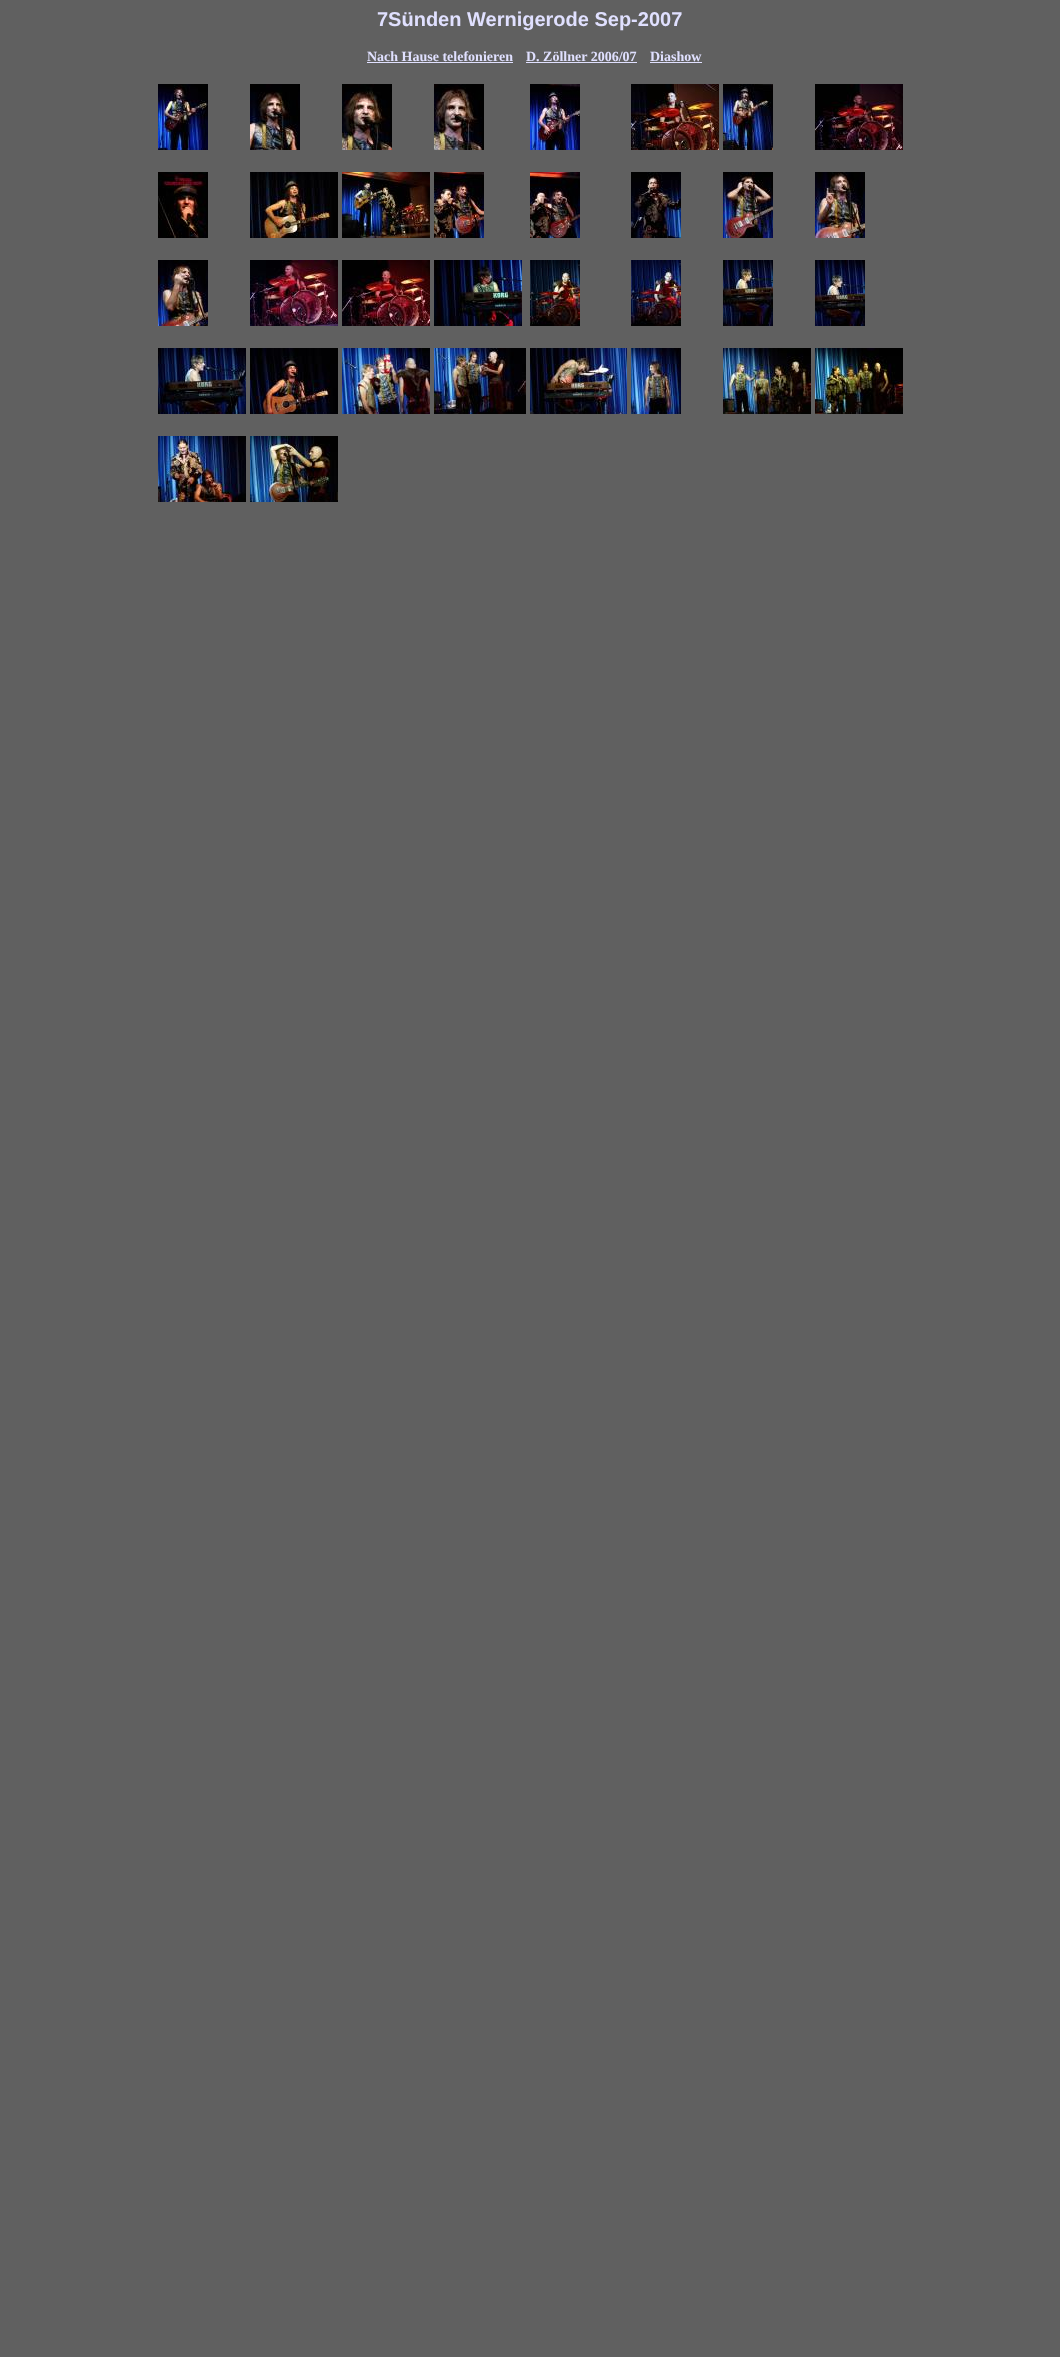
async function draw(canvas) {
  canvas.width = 1060
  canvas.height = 2357
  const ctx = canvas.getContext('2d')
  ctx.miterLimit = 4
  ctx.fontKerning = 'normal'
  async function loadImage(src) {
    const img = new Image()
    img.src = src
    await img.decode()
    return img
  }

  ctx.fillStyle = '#606060'
  ctx.fillRect(0, 0, 1060, 2357)
  ctx.font = 'bold 20px Liberation Sans'
  ctx.fillStyle = '#e0e0ff'
  ctx.fillText('7Sünden Wernigerode Sep-2007', 377, 26)
  ctx.font = 'bold 14px Liberation Serif'
  ctx.fillText('Nach Hause telefonieren', 367, 61)
  ctx.fillRect(367, 62, 146, 1)
  ctx.fillText('D. Zöllner 2006/07', 526, 61)
  ctx.fillRect(526, 62, 111, 1)
  ctx.fillText('Diashow', 650, 61)
  ctx.fillRect(650, 62, 52, 1)
  ctx.drawImage(await loadImage('image0.png'), 158, 84, 50, 66)
  ctx.drawImage(await loadImage('image1.png'), 250, 84, 50, 66)
  ctx.drawImage(await loadImage('image2.png'), 342, 84, 50, 66)
  ctx.drawImage(await loadImage('image3.png'), 434, 84, 50, 66)
  ctx.drawImage(await loadImage('image4.png'), 530, 84, 50, 66)
  ctx.drawImage(await loadImage('image5.png'), 631, 84, 88, 66)
  ctx.drawImage(await loadImage('image6.png'), 723, 84, 50, 66)
  ctx.drawImage(await loadImage('image7.png'), 815, 84, 88, 66)
  ctx.drawImage(await loadImage('image8.png'), 158, 172, 50, 66)
  ctx.drawImage(await loadImage('image9.png'), 250, 172, 88, 66)
  ctx.drawImage(await loadImage('image10.png'), 342, 172, 88, 66)
  ctx.drawImage(await loadImage('image11.png'), 434, 172, 50, 66)
  ctx.drawImage(await loadImage('image12.png'), 530, 172, 50, 66)
  ctx.drawImage(await loadImage('image13.png'), 631, 172, 50, 66)
  ctx.drawImage(await loadImage('image14.png'), 723, 172, 50, 66)
  ctx.drawImage(await loadImage('image15.png'), 815, 172, 50, 66)
  ctx.drawImage(await loadImage('image16.png'), 158, 260, 50, 66)
  ctx.drawImage(await loadImage('image17.png'), 250, 260, 88, 66)
  ctx.drawImage(await loadImage('image18.png'), 342, 260, 88, 66)
  ctx.drawImage(await loadImage('image19.png'), 434, 260, 88, 66)
  ctx.drawImage(await loadImage('image20.png'), 530, 260, 50, 66)
  ctx.drawImage(await loadImage('image21.png'), 631, 260, 50, 66)
  ctx.drawImage(await loadImage('image22.png'), 723, 260, 50, 66)
  ctx.drawImage(await loadImage('image23.png'), 815, 260, 50, 66)
  ctx.drawImage(await loadImage('image24.png'), 158, 348, 88, 66)
  ctx.drawImage(await loadImage('image25.png'), 250, 348, 88, 66)
  ctx.drawImage(await loadImage('image26.png'), 342, 348, 88, 66)
  ctx.drawImage(await loadImage('image27.png'), 434, 348, 92, 66)
  ctx.drawImage(await loadImage('image28.png'), 530, 348, 97, 66)
  ctx.drawImage(await loadImage('image29.png'), 631, 348, 50, 66)
  ctx.drawImage(await loadImage('image30.png'), 723, 348, 88, 66)
  ctx.drawImage(await loadImage('image31.png'), 815, 348, 88, 66)
  ctx.drawImage(await loadImage('image32.png'), 158, 436, 88, 66)
  ctx.drawImage(await loadImage('image33.png'), 250, 436, 88, 66)
}

draw(document.querySelector('canvas'))
